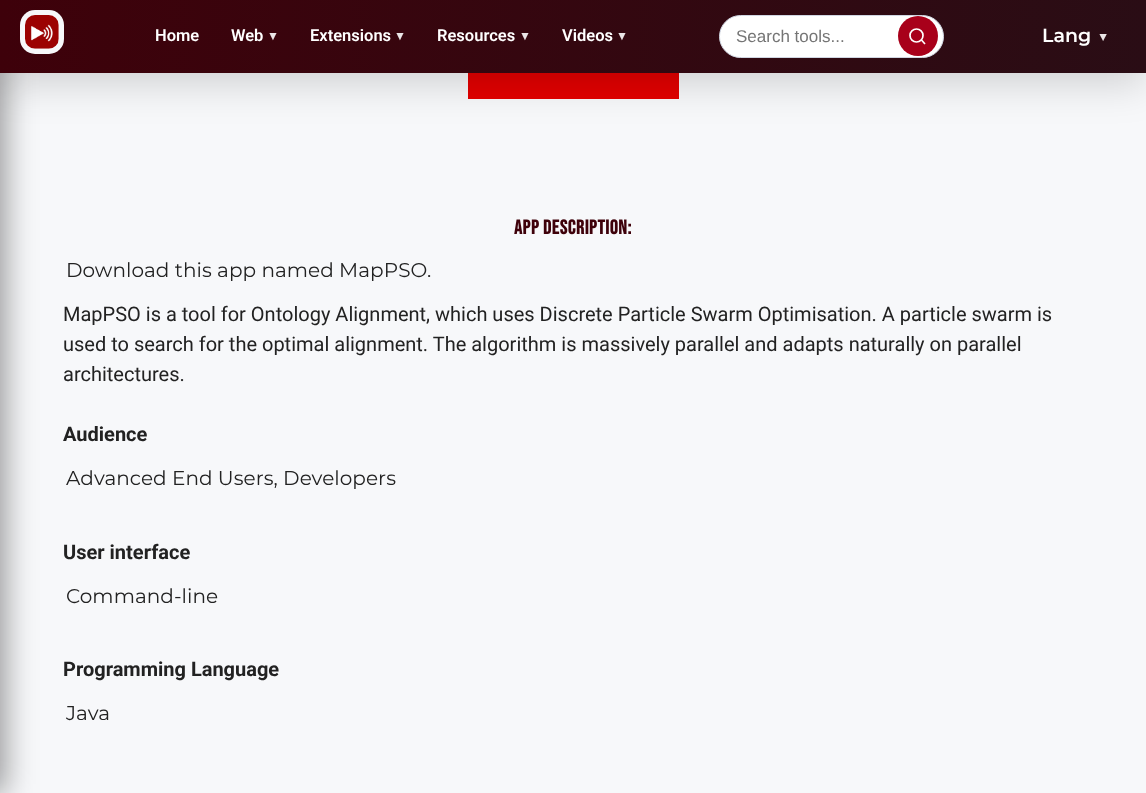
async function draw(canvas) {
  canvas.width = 1146
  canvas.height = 793
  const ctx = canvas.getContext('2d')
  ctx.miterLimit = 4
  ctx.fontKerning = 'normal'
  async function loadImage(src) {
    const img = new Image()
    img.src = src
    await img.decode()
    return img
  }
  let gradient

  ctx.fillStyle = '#f7f8fa'
  ctx.fillRect(0, 0, 1146, 793)
  ctx.fillStyle = '#00000066'
  ctx.filter = 'blur(15.5px)'
  ctx.beginPath()
  ctx.rect(-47, 0, 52, 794)
  ctx.fill()
  ctx.filter = 'none'
  ctx.fillStyle = '#e30000'
  ctx.fillRect(468, 73, 211, 26)
  ctx.fillStyle = '#00000026'
  ctx.filter = 'blur(19px)'
  ctx.beginPath()
  ctx.rect(0, 13, 1146, 72)
  ctx.fill()
  ctx.filter = 'none'
  gradient = ctx.createLinearGradient(0, 36, 1146, 36)
  gradient.addColorStop(0, '#3e010a')
  gradient.addColorStop(1, '#2a0d15')
  ctx.fillStyle = gradient
  ctx.fillRect(0, 0, 1146, 73)
  ctx.fillStyle = '#f7f8fa'
  ctx.beginPath()
  ctx.roundRect(20, 10, 44, 44, 15)
  ctx.fill()
  ctx.drawImage(await loadImage('image0.png'), 25, 15, 34, 34)
  ctx.font = '600 16.5px Roboto'
  ctx.fillStyle = '#fff'
  ctx.fillText('Home', 155, 41)
  ctx.fillText('Web', 231, 41)
  ctx.font = '600 16.5px Montserrat'
  ctx.fillStyle = '#ebe6e7'
  ctx.fillText('▼', 268, 41)
  ctx.font = '600 16.5px Roboto'
  ctx.fillStyle = '#fff'
  ctx.fillText('Extensions', 310, 41)
  ctx.font = '600 16.5px Montserrat'
  ctx.fillStyle = '#ebe6e7'
  ctx.fillText('▼', 395, 41)
  ctx.font = '600 16.5px Roboto'
  ctx.fillStyle = '#fff'
  ctx.fillText('Resources', 437, 41)
  ctx.font = '600 16.5px Montserrat'
  ctx.fillStyle = '#ebe6e7'
  ctx.fillText('▼', 520, 41)
  ctx.font = '600 16.5px Roboto'
  ctx.fillStyle = '#fff'
  ctx.fillText('Videos', 562, 41)
  ctx.font = '600 16.5px Montserrat'
  ctx.fillStyle = '#ebe6e7'
  ctx.fillText('▼', 617, 41)
  ctx.fillStyle = '#fff'
  ctx.beginPath()
  ctx.roundRect(719.5, 15.5, 224, 42, 21)
  ctx.fill()
  ctx.strokeStyle = '#d0d6e2'
  ctx.stroke()
  ctx.font = '17px Liberation Sans'
  ctx.fillStyle = '#757575'
  ctx.fillText('Search tools...', 736, 42)
  ctx.fillStyle = '#a8001a'
  ctx.beginPath()
  ctx.arc(918, 36, 20, 0, 2 * Math.PI)
  ctx.fill()
  ctx.beginPath()
  ctx.arc(916.5, 35.5, 6.5, 0, 2 * Math.PI)
  ctx.strokeStyle = '#fff'
  ctx.lineWidth = 1.7
  ctx.stroke()
  ctx.beginPath()
  ctx.moveTo(925, 44)
  ctx.lineTo(921.5, 40)
  ctx.stroke()
  ctx.font = '600 19px Montserrat'
  ctx.fillStyle = '#fff'
  ctx.fillText('Lang', 1042, 42)
  ctx.font = '600 17px Montserrat'
  ctx.fillStyle = '#ebe6e7'
  ctx.fillText('▼', 1098, 42)
  ctx.letterSpacing = '0.6px'
  ctx.font = 'bold 20px Bebas Neue'
  ctx.fillStyle = '#3e010a'
  ctx.fillText('APP DESCRIPTION:', 514, 234)
  ctx.letterSpacing = '0.05px'
  ctx.font = '20px Montserrat'
  ctx.fillStyle = '#222'
  ctx.fillText('Download this app named MapPSO.', 66, 277)
  ctx.letterSpacing = '0px'
  ctx.font = '20px Roboto'
  ctx.fillText('MapPSO is a tool for Ontology Alignment, which uses Discrete Particle Swarm Optimisation. A particle swarm is', 63, 321)
  ctx.fillText('used to search for the optimal alignment. The algorithm is massively parallel and adapts naturally on parallel', 63, 351)
  ctx.fillText('architectures.', 63, 381)
  ctx.font = 'bold 20px Roboto'
  ctx.fillText('Audience', 63, 441)
  ctx.letterSpacing = '0.05px'
  ctx.font = '20px Montserrat'
  ctx.fillText('Advanced End Users, Developers', 66, 485)
  ctx.letterSpacing = '0px'
  ctx.font = 'bold 20px Roboto'
  ctx.fillText('User interface', 63, 559)
  ctx.letterSpacing = '0.05px'
  ctx.font = '20px Montserrat'
  ctx.fillText('Command-line', 66, 603)
  ctx.letterSpacing = '0px'
  ctx.font = 'bold 20px Roboto'
  ctx.fillText('Programming Language', 63, 676)
  ctx.letterSpacing = '0.05px'
  ctx.font = '20px Montserrat'
  ctx.fillText('Java', 66, 720)
}

draw(document.querySelector('canvas'))
